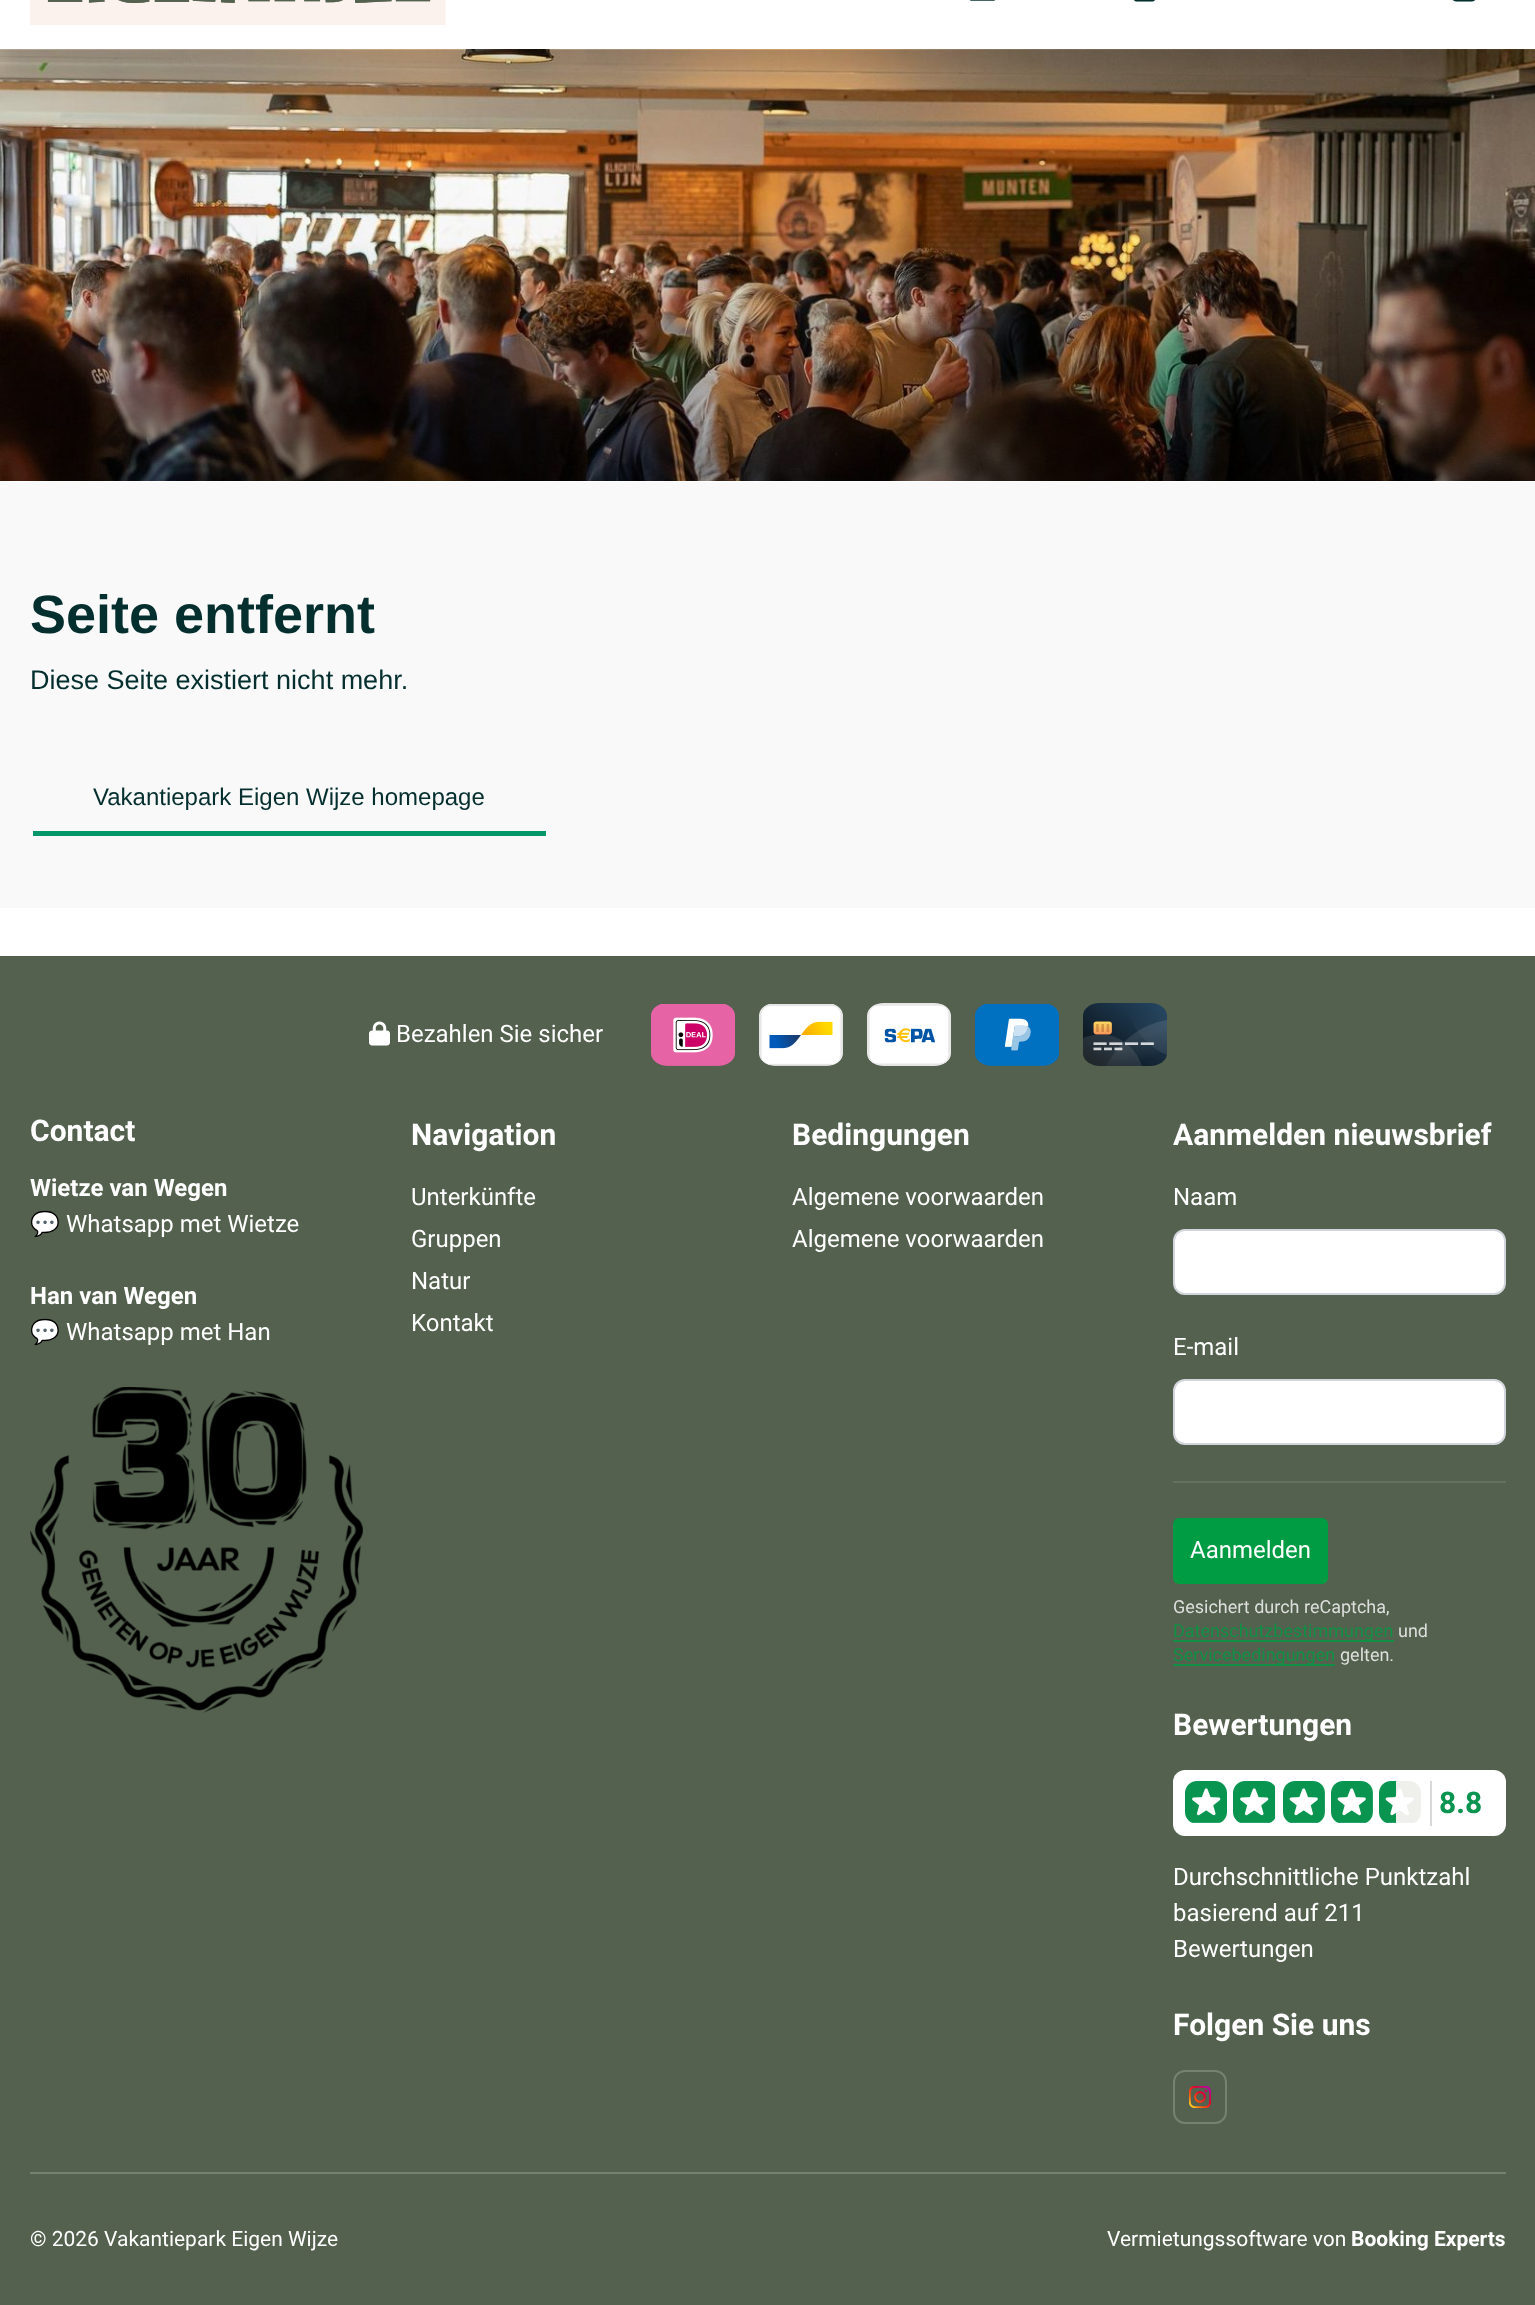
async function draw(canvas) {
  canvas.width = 1535
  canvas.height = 2305
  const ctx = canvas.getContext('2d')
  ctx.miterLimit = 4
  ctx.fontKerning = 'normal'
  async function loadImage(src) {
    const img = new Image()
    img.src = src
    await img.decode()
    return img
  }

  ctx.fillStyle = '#fff'
  ctx.fillRect(0, 0, 1535, 2305)
  ctx.drawImage(await loadImage('image4.png'), 0, 49, 1535, 432)
  ctx.save()
  ctx.beginPath()
  ctx.moveTo(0, 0)
  ctx.lineTo(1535, 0)
  ctx.lineTo(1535, 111)
  ctx.lineTo(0, 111)
  ctx.closePath()
  ctx.moveTo(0, -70)
  ctx.lineTo(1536, -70)
  ctx.lineTo(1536, 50)
  ctx.lineTo(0, 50)
  ctx.closePath()
  ctx.clip('evenodd')
  ctx.fillStyle = '#00000026'
  ctx.filter = 'blur(12px)'
  ctx.beginPath()
  ctx.rect(0, -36, 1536, 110)
  ctx.fill()
  ctx.filter = 'none'
  ctx.restore()
  ctx.drawImage(await loadImage('image0.png'), 969, 0, 27, 1)
  ctx.drawImage(await loadImage('image1.png'), 1134, 0, 21, 2)
  ctx.drawImage(await loadImage('image2.png'), 1452, 0, 24, 2)
  ctx.drawImage(await loadImage('image3.png'), 30, 0, 416, 25)
  ctx.fillStyle = '#f9f9f9'
  ctx.fillRect(0, 482, 1535, 426)
  ctx.font = 'bold 54px Liberation Sans'
  ctx.fillStyle = '#042f2e'
  ctx.fillText('Seite entfernt', 30, 633)
  ctx.font = '27px Liberation Sans'
  ctx.fillText('Diese Seite existiert nicht mehr.', 30, 689)
  ctx.fillStyle = '#059669'
  ctx.fillRect(33, 831, 513, 5)
  ctx.font = '24px Liberation Sans'
  ctx.fillStyle = '#042f2e'
  ctx.fillText('Vakantiepark Eigen Wijze homepage', 93, 805)
  ctx.fillStyle = '#53614e'
  ctx.fillRect(0, 956, 1535, 1349)
  ctx.drawImage(await loadImage('image5.png'), 369, 1021, 21, 25)
  ctx.font = '24px Roboto'
  ctx.fillStyle = '#fff'
  ctx.fillText('Bezahlen Sie sicher', 396, 1042)
  ctx.drawImage(await loadImage('image6.png'), 651, 1004, 84, 62)
  ctx.drawImage(await loadImage('image7.png'), 759, 1004, 84, 62)
  ctx.drawImage(await loadImage('image8.png'), 867, 1003, 84, 63)
  ctx.drawImage(await loadImage('image9.png'), 975, 1004, 84, 62)
  ctx.drawImage(await loadImage('image10.png'), 1083, 1003, 84, 63)
  ctx.font = 'bold 30px Roboto'
  ctx.fillText('Contact', 30, 1141)
  ctx.font = 'bold 24px Roboto'
  ctx.fillText('Wietze van Wegen', 30, 1196)
  ctx.font = '24px Noto Color Emoji'
  ctx.fillText('💬', 30, 1232)
  ctx.font = '24px Roboto'
  ctx.fillText('Whatsapp met Wietze', 66, 1232)
  ctx.font = 'bold 24px Roboto'
  ctx.fillText('Han van Wegen', 30, 1304)
  ctx.font = '24px Noto Color Emoji'
  ctx.fillText('💬', 30, 1340)
  ctx.font = '24px Roboto'
  ctx.fillText('Whatsapp met Han', 66, 1340)
  ctx.drawImage(await loadImage('image11.png'), 30, 1387, 333, 326)
  ctx.font = 'bold 30px Roboto'
  ctx.fillText('Navigation', 411, 1145)
  ctx.font = '24px Roboto'
  ctx.fillText('Unterkünfte', 411, 1205)
  ctx.fillText('Gruppen', 411, 1247)
  ctx.fillText('Natur', 411, 1289)
  ctx.fillText('Kontakt', 411, 1331)
  ctx.font = 'bold 30px Roboto'
  ctx.fillText('Bedingungen', 792, 1145)
  ctx.font = '24px Roboto'
  ctx.fillText('Algemene voorwaarden', 792, 1205)
  ctx.fillText('Algemene voorwaarden', 792, 1247)
  ctx.font = 'bold 30px Roboto'
  ctx.fillText('Aanmelden nieuwsbrief', 1173, 1145)
  ctx.font = '24px Roboto'
  ctx.fillText('Naam', 1173, 1205)
  ctx.beginPath()
  ctx.roundRect(1174, 1230, 331, 64, 11)
  ctx.fill()
  ctx.strokeStyle = '#d2d6dc'
  ctx.lineWidth = 2
  ctx.stroke()
  ctx.fillText('E-mail', 1173, 1355)
  ctx.beginPath()
  ctx.roundRect(1174, 1380, 331, 64, 11)
  ctx.fill()
  ctx.stroke()
  ctx.fillStyle = '#647160'
  ctx.fillRect(1173, 1481, 333, 2)
  ctx.fillStyle = '#009c43'
  ctx.beginPath()
  ctx.roundRect(1173, 1518, 155, 66, 6)
  ctx.fill()
  ctx.fillStyle = '#fff'
  ctx.fillText('Aanmelden', 1190, 1558)
  ctx.font = '18px Roboto'
  ctx.fillStyle = '#dddfdc'
  ctx.fillText('Gesichert durch reCaptcha,', 1173, 1613)
  ctx.fillStyle = '#119045'
  ctx.fillRect(1173, 1640, 221, 2)
  ctx.fillText('Datenschutzbestimmungen', 1173, 1637)
  ctx.fillStyle = '#dddfdc'
  ctx.fillText('und', 1398, 1637)
  ctx.fillStyle = '#119045'
  ctx.fillRect(1173, 1664, 162, 2)
  ctx.fillText('Servicebedingungen', 1173, 1661)
  ctx.fillStyle = '#dddfdc'
  ctx.fillText('gelten.', 1340, 1661)
  ctx.font = 'bold 30px Roboto'
  ctx.fillStyle = '#fff'
  ctx.fillText('Bewertungen', 1173, 1735)
  ctx.beginPath()
  ctx.roundRect(1173, 1770, 333, 66, 12)
  ctx.fill()
  ctx.drawImage(await loadImage('image12.png'), 1185, 1781, 42, 42)
  ctx.drawImage(await loadImage('image13.png'), 1233, 1781, 43, 42)
  ctx.drawImage(await loadImage('image14.png'), 1283, 1781, 42, 42)
  ctx.drawImage(await loadImage('image14.png'), 1331, 1781, 42, 42)
  ctx.drawImage(await loadImage('image15.png'), 1379, 1781, 42, 42)
  ctx.fillStyle = '#d7dad9'
  ctx.fillRect(1430, 1781, 2, 45)
  ctx.fillStyle = '#09954f'
  ctx.fillText('8.8', 1439, 1813)
  ctx.font = '24px Roboto'
  ctx.fillStyle = '#fff'
  ctx.fillText('Durchschnittliche Punktzahl', 1173, 1885)
  ctx.fillText('basierend auf 211', 1173, 1921)
  ctx.fillText('Bewertungen', 1173, 1957)
  ctx.font = 'bold 30px Roboto'
  ctx.fillText('Folgen Sie uns', 1173, 2035)
  ctx.beginPath()
  ctx.roundRect(1174, 2071, 52, 52, 11)
  ctx.strokeStyle = '#758171'
  ctx.stroke()
  ctx.drawImage(await loadImage('image16.png'), 1189, 2086, 22, 22)
  ctx.fillStyle = '#758171'
  ctx.fillRect(30, 2172, 1476, 2)
  ctx.font = '21px Roboto'
  ctx.fillStyle = '#fff'
  ctx.fillText('© 2026 Vakantiepark Eigen Wijze', 30, 2246)
  ctx.fillText('Vermietungssoftware von', 1107, 2246)
  ctx.font = 'bold 21px Roboto'
  ctx.fillText('Booking Experts', 1351, 2246)
}

draw(document.querySelector('canvas'))
